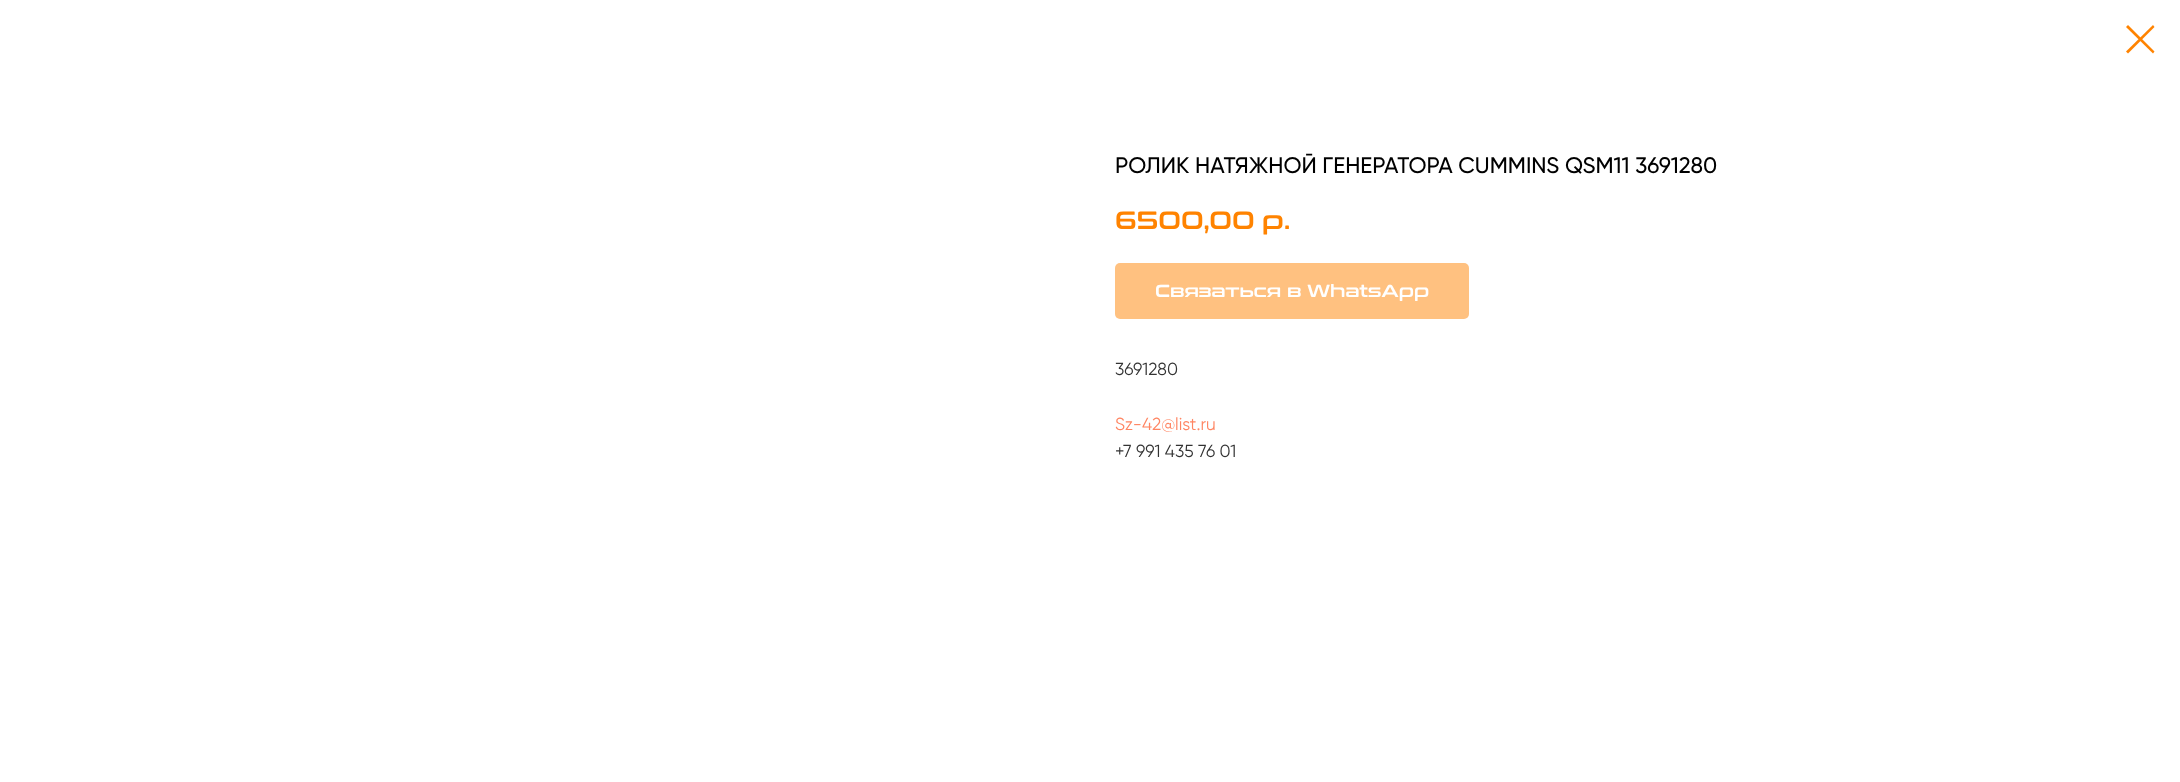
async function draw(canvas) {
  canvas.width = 2180
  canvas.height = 782
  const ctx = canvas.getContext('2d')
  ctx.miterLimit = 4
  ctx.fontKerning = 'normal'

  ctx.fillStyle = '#fff'
  ctx.fillRect(0, 0, 2180, 782)
  ctx.fillStyle = '#ff8300'
  ctx.beginPath()
  ctx.moveTo(2126, 27)
  ctx.lineTo(2128, 25)
  ctx.lineTo(2154.5, 51.5)
  ctx.lineTo(2153, 53.5)
  ctx.closePath()
  ctx.fill('evenodd')
  ctx.beginPath()
  ctx.moveTo(2153, 25)
  ctx.lineTo(2154.5, 27)
  ctx.lineTo(2128, 53.5)
  ctx.lineTo(2126, 51.5)
  ctx.closePath()
  ctx.fill('evenodd')
  ctx.font = '500 22.5px Gilroy'
  ctx.fillStyle = '#000'
  ctx.fillText('РОЛИК НАТЯЖНОЙ ГЕНЕРАТОРА CUMMINS QSM11 3691280', 1115, 173)
  ctx.font = '25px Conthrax'
  ctx.fillStyle = '#ff8300'
  ctx.fillText('6500,00', 1115, 229)
  ctx.fillText('р.', 1262, 229)
  ctx.fillStyle = '#ffc180'
  ctx.beginPath()
  ctx.roundRect(1115, 263, 354, 56, 5)
  ctx.fill()
  ctx.font = '17.5px Conthrax'
  ctx.fillStyle = '#fff'
  ctx.fillText('Связаться в WhatsApp', 1155, 297)
  ctx.font = '17.5px Gilroy'
  ctx.fillStyle = '#333'
  ctx.fillText('3691280', 1115, 375)
  ctx.fillStyle = '#ff8562'
  ctx.fillText('Sz-42@list.ru', 1115, 430)
  ctx.fillStyle = '#333'
  ctx.fillText('+7 991 435 76 01', 1115, 457)
}

draw(document.querySelector('canvas'))
